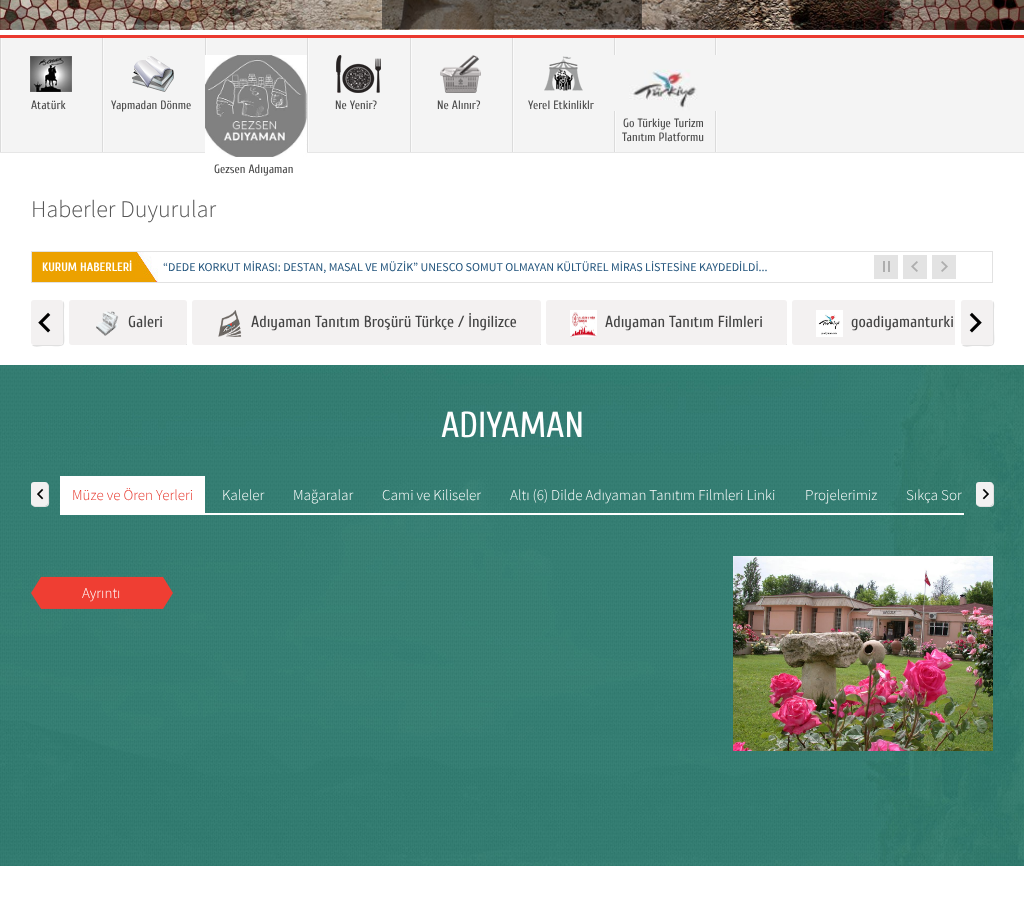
async function draw(canvas) {
  canvas.width = 1024
  canvas.height = 901
  const ctx = canvas.getContext('2d')
  ctx.miterLimit = 4
  ctx.fontKerning = 'normal'
  async function loadImage(src) {
    const img = new Image()
    img.src = src
    await img.decode()
    return img
  }

  ctx.fillStyle = '#fff'
  ctx.fillRect(0, 0, 1024, 901)
  ctx.drawImage(await loadImage('image0.png'), 0, 0, 1024, 30)
  ctx.fillStyle = '#00000073'
  ctx.fillRect(382, 0, 260, 29)
  ctx.fillStyle = '#f4f4f4'
  ctx.fillRect(2, 38, 1022, 114)
  ctx.fillStyle = '#eb392f'
  ctx.fillRect(0, 35, 1024, 3)
  ctx.fillStyle = '#e6e6e6'
  ctx.fillRect(0, 152, 1024, 1)
  ctx.drawImage(await loadImage('image1.png'), 0, 38, 2, 114)
  ctx.drawImage(await loadImage('image2.png'), 30, 56, 42, 36)
  ctx.font = '12px Cuprum'
  ctx.fillStyle = '#494949'
  ctx.fillText('Atatürk', 31, 109)
  ctx.drawImage(await loadImage('image1.png'), 102, 38, 2, 114)
  ctx.drawImage(await loadImage('image3.png'), 132, 56, 42, 36)
  ctx.fillText('Yapmadan Dönme', 111, 109)
  ctx.drawImage(await loadImage('image1.png'), 307, 38, 2, 114)
  ctx.drawImage(await loadImage('image4.png'), 336, 55, 45, 38)
  ctx.fillText('Ne Yenir?', 335, 109)
  ctx.drawImage(await loadImage('image1.png'), 410, 38, 2, 114)
  ctx.drawImage(await loadImage('image5.png'), 440, 55, 41, 38)
  ctx.fillText('Ne Alınır?', 437, 109)
  ctx.drawImage(await loadImage('image1.png'), 512, 38, 2, 114)
  ctx.drawImage(await loadImage('image6.png'), 544, 56, 39, 35)
  ctx.fillText('Yerel Etkinliklr', 528, 109)
  ctx.drawImage(await loadImage('image1.png'), 614, 38, 2, 114)
  ctx.drawImage(await loadImage('image1.png'), 715, 38, 2, 114)
  ctx.drawImage(await loadImage('image7.png'), 614, 55, 103, 56)
  ctx.fillText('Go Türkiye Turizm', 623, 127)
  ctx.fillText('Tanıtım Platformu', 622, 141)
  ctx.drawImage(await loadImage('image8.png'), 205, 38, 2, 17)
  ctx.drawImage(await loadImage('image9.png'), 205, 55, 102, 102)
  ctx.fillText('Gezsen Adıyaman', 214, 173)
  ctx.font = '300 24px Source Sans Pro'
  ctx.fillStyle = '#565656'
  ctx.fillText('Haberler Duyurular', 31, 217)
  ctx.strokeStyle = '#e2e2e2'
  ctx.strokeRect(31.5, 251.5, 961, 31)
  ctx.fillStyle = '#eca100'
  ctx.fillRect(32, 252, 103, 30)
  ctx.drawImage(await loadImage('image10.png'), 135, 252, 23, 30)
  ctx.font = 'bold 12px Cuprum'
  ctx.fillStyle = '#fff'
  ctx.fillText('KURUM HABERLERİ', 42, 271)
  ctx.font = '12px Source Sans Pro'
  ctx.fillStyle = '#1f527b'
  ctx.fillText('“DEDE KORKUT MİRASI: DESTAN, MASAL VE MÜZİK” UNESCO SOMUT OLMAYAN KÜLTÜREL MİRAS LİSTESİNE KAYDEDİLDİ...', 163, 271)
  ctx.fillStyle = '#e3e3e3'
  ctx.fillRect(874, 255, 24, 24)
  ctx.drawImage(await loadImage('image11.png'), 883, 261, 7, 11)
  ctx.fillRect(903, 255, 24, 24)
  ctx.drawImage(await loadImage('image12.png'), 911, 261, 7, 11)
  ctx.fillRect(932, 255, 24, 24)
  ctx.drawImage(await loadImage('image13.png'), 941, 261, 7, 11)
  ctx.fillStyle = '#e0e0e0'
  ctx.beginPath()
  ctx.moveTo(32, 345)
  ctx.bezierCurveTo(34, 348, 41, 346, 44, 346)
  ctx.bezierCurveTo(69, 346, 64, 350, 64, 324)
  ctx.lineTo(64, 310)
  ctx.bezierCurveTo(64, 309, 65, 303, 63, 301)
  ctx.lineTo(63, 303)
  ctx.lineTo(63, 342)
  ctx.bezierCurveTo(63, 344, 62, 345, 60, 345)
  ctx.lineTo(34, 345)
  ctx.closePath()
  ctx.fill()
  ctx.fillStyle = '#f3f1f1'
  ctx.beginPath()
  ctx.roundRect(31, 300, 32, 45, 3)
  ctx.fill()
  ctx.drawImage(await loadImage('image14.png'), 38, 312, 13, 21)
  ctx.fillStyle = '#e0e0e0'
  ctx.beginPath()
  ctx.moveTo(962, 345)
  ctx.bezierCurveTo(964, 348, 971, 346, 974, 346)
  ctx.bezierCurveTo(999, 346, 994, 350, 994, 324)
  ctx.lineTo(994, 310)
  ctx.bezierCurveTo(994, 309, 995, 303, 993, 301)
  ctx.lineTo(993, 303)
  ctx.lineTo(993, 342)
  ctx.bezierCurveTo(993, 344, 992, 345, 990, 345)
  ctx.lineTo(964, 345)
  ctx.closePath()
  ctx.fill()
  ctx.fillStyle = '#f3f1f1'
  ctx.beginPath()
  ctx.roundRect(961, 300, 32, 45, 3)
  ctx.fill()
  ctx.drawImage(await loadImage('image15.png'), 969, 312, 13, 21)
  ctx.save()
  ctx.beginPath()
  ctx.rect(69, 300, 118, 45)
  ctx.clip()
  ctx.fillStyle = '#e0e0e0'
  ctx.beginPath()
  ctx.moveTo(70, 345)
  ctx.bezierCurveTo(71, 345, 72, 346, 73, 346)
  ctx.lineTo(185, 346)
  ctx.bezierCurveTo(187, 346, 188, 345, 188, 343)
  ctx.lineTo(188, 304)
  ctx.bezierCurveTo(188, 303, 187, 302, 187, 301)
  ctx.lineTo(187, 303)
  ctx.lineTo(187, 342)
  ctx.bezierCurveTo(187, 344, 186, 345, 184, 345)
  ctx.lineTo(72, 345)
  ctx.closePath()
  ctx.fill()
  ctx.restore()
  ctx.beginPath()
  ctx.roundRect(69, 300, 118, 45, 3)
  ctx.fill()
  ctx.drawImage(await loadImage('image16.png'), 96, 311, 23, 25)
  ctx.font = '16px Cuprum'
  ctx.fillStyle = '#434343'
  ctx.fillText('Galeri', 128, 327)
  ctx.save()
  ctx.beginPath()
  ctx.rect(192, 300, 349, 45)
  ctx.clip()
  ctx.fillStyle = '#e0e0e0'
  ctx.beginPath()
  ctx.moveTo(193, 345)
  ctx.bezierCurveTo(194, 345, 195, 346, 196, 346)
  ctx.lineTo(539, 346)
  ctx.bezierCurveTo(541, 346, 542, 345, 542, 343)
  ctx.lineTo(542, 304)
  ctx.bezierCurveTo(542, 303, 541, 302, 541, 301)
  ctx.lineTo(541, 303)
  ctx.lineTo(541, 342)
  ctx.bezierCurveTo(541, 344, 540, 345, 538, 345)
  ctx.lineTo(195, 345)
  ctx.closePath()
  ctx.fill()
  ctx.restore()
  ctx.fillStyle = '#f3f1f1'
  ctx.beginPath()
  ctx.roundRect(192, 300, 349, 45, 3)
  ctx.fill()
  ctx.drawImage(await loadImage('image17.png'), 218, 310, 24, 27)
  ctx.fillStyle = '#434343'
  ctx.fillText('Adıyaman Tanıtım Broşürü Türkçe / İngilizce', 251, 327)
  ctx.save()
  ctx.beginPath()
  ctx.rect(546, 300, 241, 45)
  ctx.clip()
  ctx.fillStyle = '#e0e0e0'
  ctx.beginPath()
  ctx.moveTo(547, 345)
  ctx.bezierCurveTo(548, 345, 549, 346, 550, 346)
  ctx.lineTo(785, 346)
  ctx.bezierCurveTo(787, 346, 788, 345, 788, 343)
  ctx.lineTo(788, 304)
  ctx.bezierCurveTo(788, 303, 787, 302, 787, 301)
  ctx.lineTo(787, 303)
  ctx.lineTo(787, 342)
  ctx.bezierCurveTo(787, 344, 786, 345, 784, 345)
  ctx.lineTo(549, 345)
  ctx.closePath()
  ctx.fill()
  ctx.restore()
  ctx.fillStyle = '#f3f1f1'
  ctx.beginPath()
  ctx.roundRect(546, 300, 241, 45, 3)
  ctx.fill()
  ctx.drawImage(await loadImage('image18.png'), 570, 310, 27, 27)
  ctx.fillStyle = '#434343'
  ctx.fillText('Adıyaman Tanıtım Filmleri', 605, 327)
  ctx.fillStyle = '#f3f1f1'
  ctx.beginPath()
  ctx.roundRect(792, 300, 163, 45, [3, 0, 0, 3])
  ctx.fill()
  ctx.drawImage(await loadImage('image19.png'), 816, 310, 27, 27)
  ctx.fillStyle = '#434343'
  ctx.fillText('goadiyamanturki', 851, 327)
  ctx.drawImage(await loadImage('image20.png'), 0, 365, 1024, 501)
  ctx.font = '36px Cuprum'
  ctx.fillStyle = '#fff'
  ctx.fillText('ADIYAMAN', 441, 437)
  ctx.fillStyle = '#e0e0e0'
  ctx.beginPath()
  ctx.moveTo(32.5, 505.5)
  ctx.bezierCurveTo(33.5, 507.5, 36.5, 507, 38.5, 507)
  ctx.bezierCurveTo(51, 507, 49, 507.5, 49, 495)
  ctx.lineTo(49, 489)
  ctx.bezierCurveTo(49, 487, 49.5, 484.5, 47.5, 483.5)
  ctx.lineTo(48, 485)
  ctx.lineTo(48, 503)
  ctx.bezierCurveTo(48, 504.5, 46.5, 506, 45, 506)
  ctx.lineTo(34, 506)
  ctx.closePath()
  ctx.fill()
  ctx.fillStyle = '#f3f1f1'
  ctx.beginPath()
  ctx.roundRect(31, 482, 17, 24, 3)
  ctx.fill()
  ctx.drawImage(await loadImage('image21.png'), 37, 488, 7, 12)
  ctx.fillStyle = '#e0e0e0'
  ctx.beginPath()
  ctx.moveTo(977.5, 505.5)
  ctx.bezierCurveTo(978.5, 507.5, 981.5, 507, 983.5, 507)
  ctx.bezierCurveTo(996, 507, 994, 507.5, 994, 495)
  ctx.lineTo(994, 489)
  ctx.bezierCurveTo(994, 487, 994.5, 484.5, 992.5, 483.5)
  ctx.lineTo(993, 485)
  ctx.lineTo(993, 503)
  ctx.bezierCurveTo(993, 504.5, 991.5, 506, 990, 506)
  ctx.lineTo(979, 506)
  ctx.closePath()
  ctx.fill()
  ctx.fillStyle = '#f3f1f1'
  ctx.beginPath()
  ctx.roundRect(976, 482, 17, 24, 3)
  ctx.fill()
  ctx.drawImage(await loadImage('image22.png'), 982, 488, 7, 12)
  ctx.fillStyle = '#fff'
  ctx.fillRect(60, 513, 904, 2)
  ctx.fillRect(60, 476, 145, 37)
  ctx.font = '300 15px Source Sans Pro'
  ctx.fillStyle = '#e6352a'
  ctx.fillText('Müze ve Ören Yerleri', 72, 500)
  ctx.fillStyle = '#fff'
  ctx.fillText('Kaleler', 222, 500)
  ctx.fillText('Mağaralar', 293, 500)
  ctx.fillText('Cami ve Kiliseler', 382, 500)
  ctx.fillText('Altı (6) Dilde Adıyaman Tanıtım Filmleri Linki', 510, 500)
  ctx.fillText('Projelerimiz', 805, 500)
  ctx.fillText('Sıkça Sor', 906, 500)
  ctx.drawImage(await loadImage('image23.png'), 31, 576, 142, 33)
  ctx.fillText('Ayrıntı', 82, 598)
  ctx.drawImage(await loadImage('image24.png'), 733, 556, 260, 195)
}

draw(document.querySelector('canvas'))
